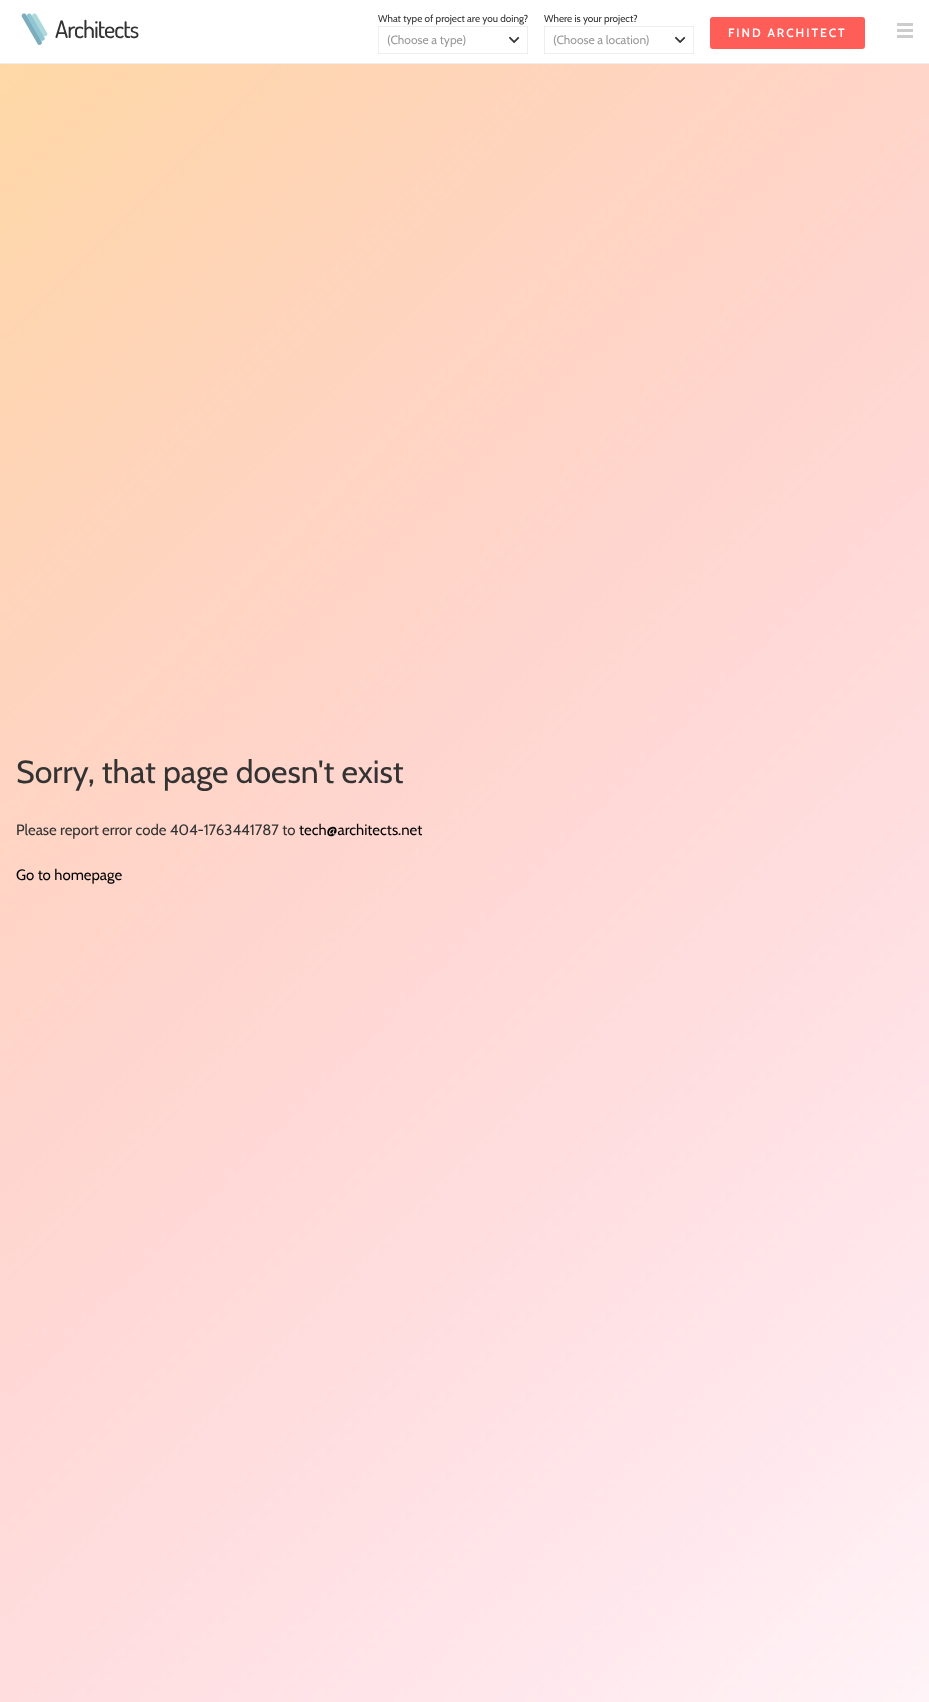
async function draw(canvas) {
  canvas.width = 929
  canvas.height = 1702
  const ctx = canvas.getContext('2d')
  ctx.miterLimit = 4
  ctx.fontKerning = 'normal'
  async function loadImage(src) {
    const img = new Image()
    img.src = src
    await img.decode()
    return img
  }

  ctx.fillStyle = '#fff'
  ctx.fillRect(0, 0, 929, 1702)
  ctx.fillStyle = '#eee'
  ctx.fillRect(0, 63, 929, 1)
  ctx.drawImage(await loadImage('image0.png'), 21, 13, 27, 32)
  ctx.letterSpacing = '-1px'
  ctx.font = '500 24px Dosis'
  ctx.fillStyle = '#333'
  ctx.fillText('Architects', 55, 38)
  ctx.letterSpacing = '0px'
  ctx.font = '10px Cabin'
  ctx.fillText('What type of project are you doing?', 378, 22)
  ctx.drawImage(await loadImage('image1.png'), 509, 36, 11, 7)
  ctx.strokeStyle = '#eee'
  ctx.strokeRect(378.5, 26.5, 149, 27)
  ctx.font = '12px Cabin'
  ctx.fillStyle = '#999'
  ctx.fillText('(Choose a type)', 387, 44)
  ctx.font = '10px Cabin'
  ctx.fillStyle = '#333'
  ctx.fillText('Where is your project?', 544, 22)
  ctx.drawImage(await loadImage('image1.png'), 675, 36, 11, 7)
  ctx.strokeRect(544.5, 26.5, 149, 27)
  ctx.font = '12px Cabin'
  ctx.fillStyle = '#999'
  ctx.fillText('(Choose a location)', 553, 44)
  ctx.fillStyle = '#ff5e58'
  ctx.beginPath()
  ctx.roundRect(711, 18, 153, 30, 2)
  ctx.fill()
  ctx.strokeStyle = '#ff5e58'
  ctx.lineWidth = 2
  ctx.stroke()
  ctx.letterSpacing = '2px'
  ctx.font = '600 12px Cabin'
  ctx.fillStyle = '#fff'
  ctx.fillText('FIND ARCHITECT', 728, 37)
  ctx.drawImage(await loadImage('image2.png'), 897, 23, 16, 15)
  ctx.drawImage(await loadImage('image3.png'), 0, 64, 929, 1638)
  ctx.letterSpacing = '0px'
  ctx.font = '32px Cabin'
  ctx.fillStyle = '#333'
  ctx.fillText('Sorry, that page doesn\'t exist', 16, 783)
  ctx.font = '15px Cabin'
  ctx.fillText('Please report error code 404-1763441787 to', 16, 835)
  ctx.fillStyle = '#000'
  ctx.fillText('tech@architects.net', 299, 835)
  ctx.fillText('Go to homepage', 16, 880)
}

draw(document.querySelector('canvas'))
